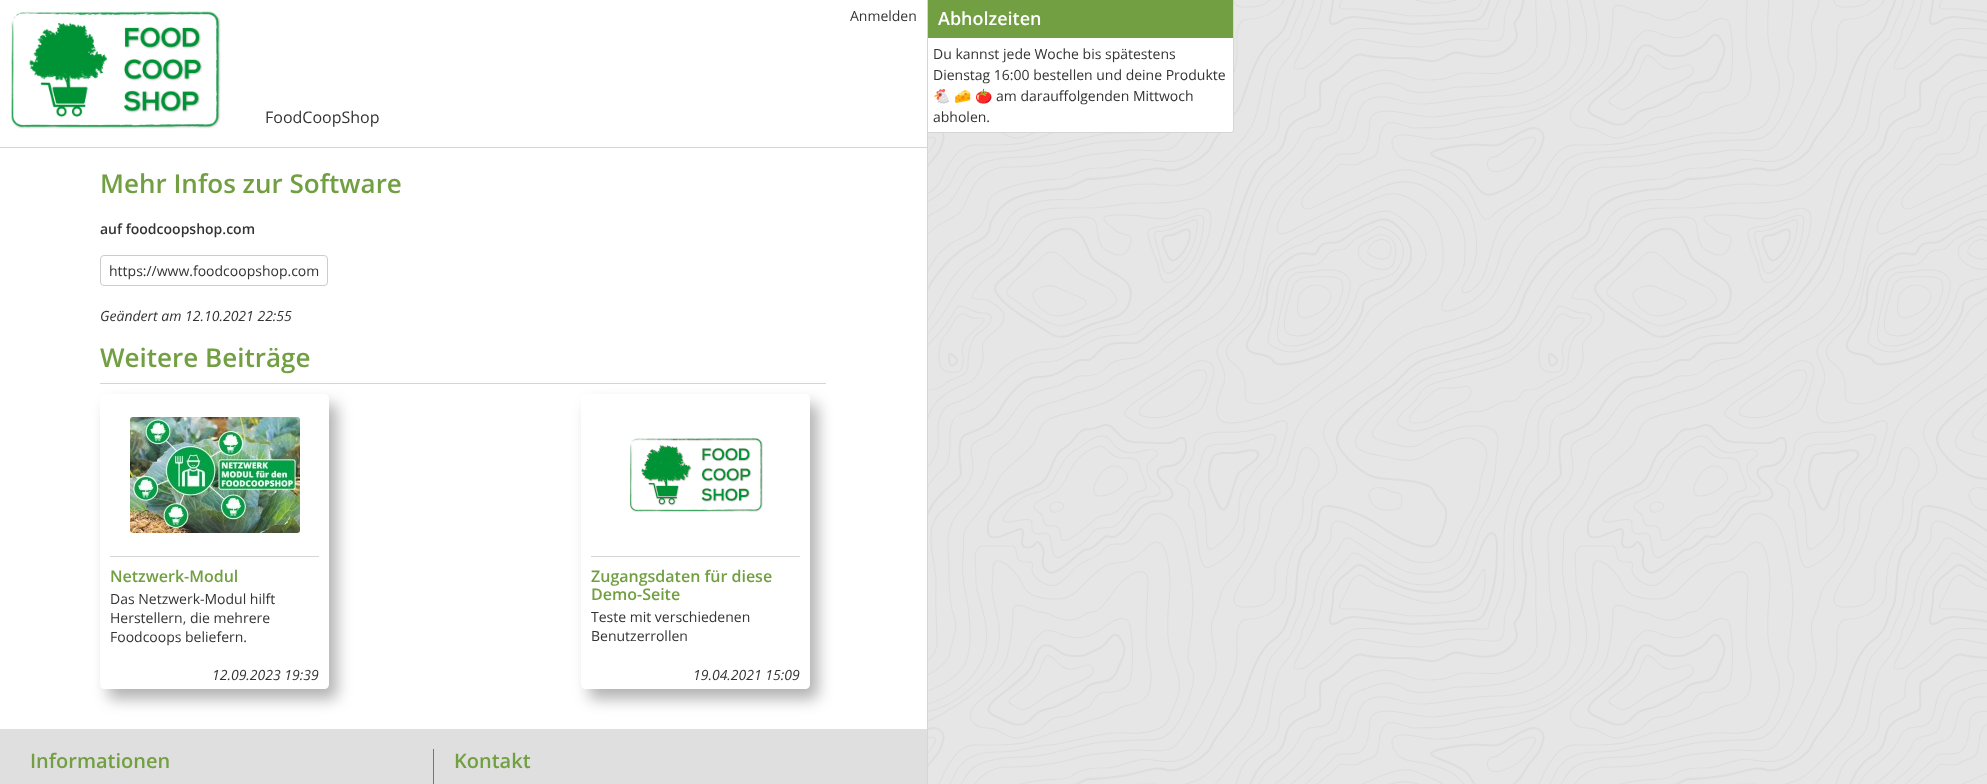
async function draw(canvas) {
  canvas.width = 1987
  canvas.height = 784
  const ctx = canvas.getContext('2d')
  ctx.miterLimit = 4
  ctx.fontKerning = 'normal'
  async function loadImage(src) {
    const img = new Image()
    img.src = src
    await img.decode()
    return img
  }

  ctx.fillStyle = '#e6e6e6'
  ctx.fillRect(0, 0, 1987, 784)
  ctx.drawImage(await loadImage('image0.png'), 928, 0, 1059, 784)
  ctx.fillStyle = '#fff'
  ctx.fillRect(0, 0, 927, 147)
  ctx.fillStyle = '#d6d4d4'
  ctx.fillRect(927, 0, 1, 784)
  ctx.fillRect(0, 147, 928, 1)
  ctx.drawImage(await loadImage('image1.png'), 11, 11, 210, 118)
  ctx.font = '16px Open Sans'
  ctx.fillStyle = '#333'
  ctx.fillText('FoodCoopShop', 265, 123)
  ctx.font = '14px Open Sans'
  ctx.fillText('Anmelden', 850, 21)
  ctx.fillStyle = '#fff'
  ctx.beginPath()
  ctx.roundRect(928, 0, 306, 133, [0, 0, 3, 0])
  ctx.fill()
  ctx.fillStyle = '#d6d4d4'
  ctx.beginPath()
  ctx.moveTo(928, 0)
  ctx.lineTo(1234, 0)
  ctx.lineTo(1234, 130)
  ctx.bezierCurveTo(1234, 132, 1233, 133, 1231, 133)
  ctx.lineTo(928, 133)
  ctx.closePath()
  ctx.moveTo(928, 0)
  ctx.lineTo(1233, 0)
  ctx.lineTo(1233, 130)
  ctx.bezierCurveTo(1233, 131, 1232, 132, 1231, 132)
  ctx.lineTo(928, 132)
  ctx.closePath()
  ctx.fill('evenodd')
  ctx.fillStyle = '#719f41'
  ctx.fillRect(928, 0, 305, 38)
  ctx.font = '600 18px Open Sans'
  ctx.fillStyle = '#fff'
  ctx.fillText('Abholzeiten', 938, 25)
  ctx.font = '14px Open Sans'
  ctx.fillStyle = '#333'
  ctx.fillText('Du kannst jede Woche bis spätestens', 933, 59)
  ctx.fillText('Dienstag 16:00 bestellen und deine Produkte', 933, 80)
  ctx.font = '14px Noto Color Emoji'
  ctx.fillText('🐔', 933, 101)
  ctx.fillText('🧀', 954, 101)
  ctx.fillText('🍅', 975, 101)
  ctx.font = '14px Open Sans'
  ctx.fillText('am darauffolgenden Mittwoch', 996, 101)
  ctx.fillText('abholen.', 933, 122)
  ctx.fillStyle = '#fff'
  ctx.fillRect(0, 148, 927, 581)
  ctx.font = '600 26px Open Sans'
  ctx.fillStyle = '#719f41'
  ctx.fillText('Mehr Infos zur Software', 100, 193)
  ctx.font = '600 14px Open Sans'
  ctx.fillStyle = '#333'
  ctx.fillText('auf foodcoopshop.com', 100, 234)
  ctx.beginPath()
  ctx.roundRect(100.5, 255.5, 227, 30, 3.5)
  ctx.strokeStyle = '#ccc'
  ctx.stroke()
  ctx.font = '14px Open Sans'
  ctx.fillText('https://www.foodcoopshop.com', 109, 276)
  ctx.font = 'italic 14px Open Sans'
  ctx.fillText('Geändert am 12.10.2021 22:55', 100, 321)
  ctx.fillStyle = '#d6d4d4'
  ctx.fillRect(100, 383, 726, 1)
  ctx.font = '600 26px Open Sans'
  ctx.fillStyle = '#719f41'
  ctx.fillText('Weitere Beiträge', 100, 367)
  ctx.save()
  ctx.beginPath()
  ctx.moveTo(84, 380)
  ctx.lineTo(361, 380)
  ctx.lineTo(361, 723)
  ctx.lineTo(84, 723)
  ctx.closePath()
  ctx.moveTo(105, 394)
  ctx.lineTo(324, 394)
  ctx.bezierCurveTo(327, 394, 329, 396, 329, 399)
  ctx.lineTo(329, 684)
  ctx.bezierCurveTo(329, 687, 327, 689, 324, 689)
  ctx.lineTo(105, 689)
  ctx.bezierCurveTo(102, 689, 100, 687, 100, 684)
  ctx.lineTo(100, 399)
  ctx.bezierCurveTo(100, 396, 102, 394, 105, 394)
  ctx.closePath()
  ctx.clip('evenodd')
  ctx.fillStyle = '#0000004d'
  ctx.filter = 'blur(7.5px)'
  ctx.beginPath()
  ctx.roundRect(108, 404, 229, 295, 5)
  ctx.fill()
  ctx.filter = 'none'
  ctx.restore()
  ctx.drawImage(await loadImage('image2.png'), 130, 417, 170, 116)
  ctx.fillStyle = '#d6d4d4'
  ctx.fillRect(110, 556, 209, 1)
  ctx.font = '600 16px Open Sans'
  ctx.fillStyle = '#719f41'
  ctx.fillText('Netzwerk-Modul', 110, 582)
  ctx.font = '14px Open Sans'
  ctx.fillStyle = '#333'
  ctx.fillText('Das Netzwerk-Modul hilft', 110, 604)
  ctx.fillText('Herstellern, die mehrere', 110, 623)
  ctx.fillText('Foodcoops beliefern.', 110, 642)
  ctx.font = 'italic 14px Open Sans'
  ctx.fillText('12.09.2023 19:39', 212, 680)
  ctx.save()
  ctx.beginPath()
  ctx.moveTo(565, 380)
  ctx.lineTo(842, 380)
  ctx.lineTo(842, 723)
  ctx.lineTo(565, 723)
  ctx.closePath()
  ctx.moveTo(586, 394)
  ctx.lineTo(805, 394)
  ctx.bezierCurveTo(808, 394, 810, 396, 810, 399)
  ctx.lineTo(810, 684)
  ctx.bezierCurveTo(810, 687, 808, 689, 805, 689)
  ctx.lineTo(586, 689)
  ctx.bezierCurveTo(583, 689, 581, 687, 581, 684)
  ctx.lineTo(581, 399)
  ctx.bezierCurveTo(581, 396, 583, 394, 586, 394)
  ctx.closePath()
  ctx.clip('evenodd')
  ctx.fillStyle = '#0000004d'
  ctx.filter = 'blur(7.5px)'
  ctx.beginPath()
  ctx.roundRect(589, 404, 229, 295, 5)
  ctx.fill()
  ctx.filter = 'none'
  ctx.restore()
  ctx.drawImage(await loadImage('image3.png'), 630, 438, 133, 74)
  ctx.fillStyle = '#d6d4d4'
  ctx.fillRect(591, 556, 209, 1)
  ctx.font = '600 16px Open Sans'
  ctx.fillStyle = '#719f41'
  ctx.fillText('Zugangsdaten für diese', 591, 582)
  ctx.fillText('Demo-Seite', 591, 600)
  ctx.font = '14px Open Sans'
  ctx.fillStyle = '#333'
  ctx.fillText('Teste mit verschiedenen', 591, 622)
  ctx.fillText('Benutzerrollen', 591, 641)
  ctx.font = 'italic 14px Open Sans'
  ctx.fillText('19.04.2021 15:09', 693, 680)
  ctx.fillStyle = '#dfdfdf'
  ctx.fillRect(0, 729, 927, 55)
  ctx.font = '600 20px Open Sans'
  ctx.fillStyle = '#719f41'
  ctx.fillText('Informationen', 30, 768)
  ctx.fillStyle = '#777'
  ctx.fillRect(433, 749, 1, 35)
  ctx.fillStyle = '#719f41'
  ctx.fillText('Kontakt', 454, 768)
}

draw(document.querySelector('canvas'))
